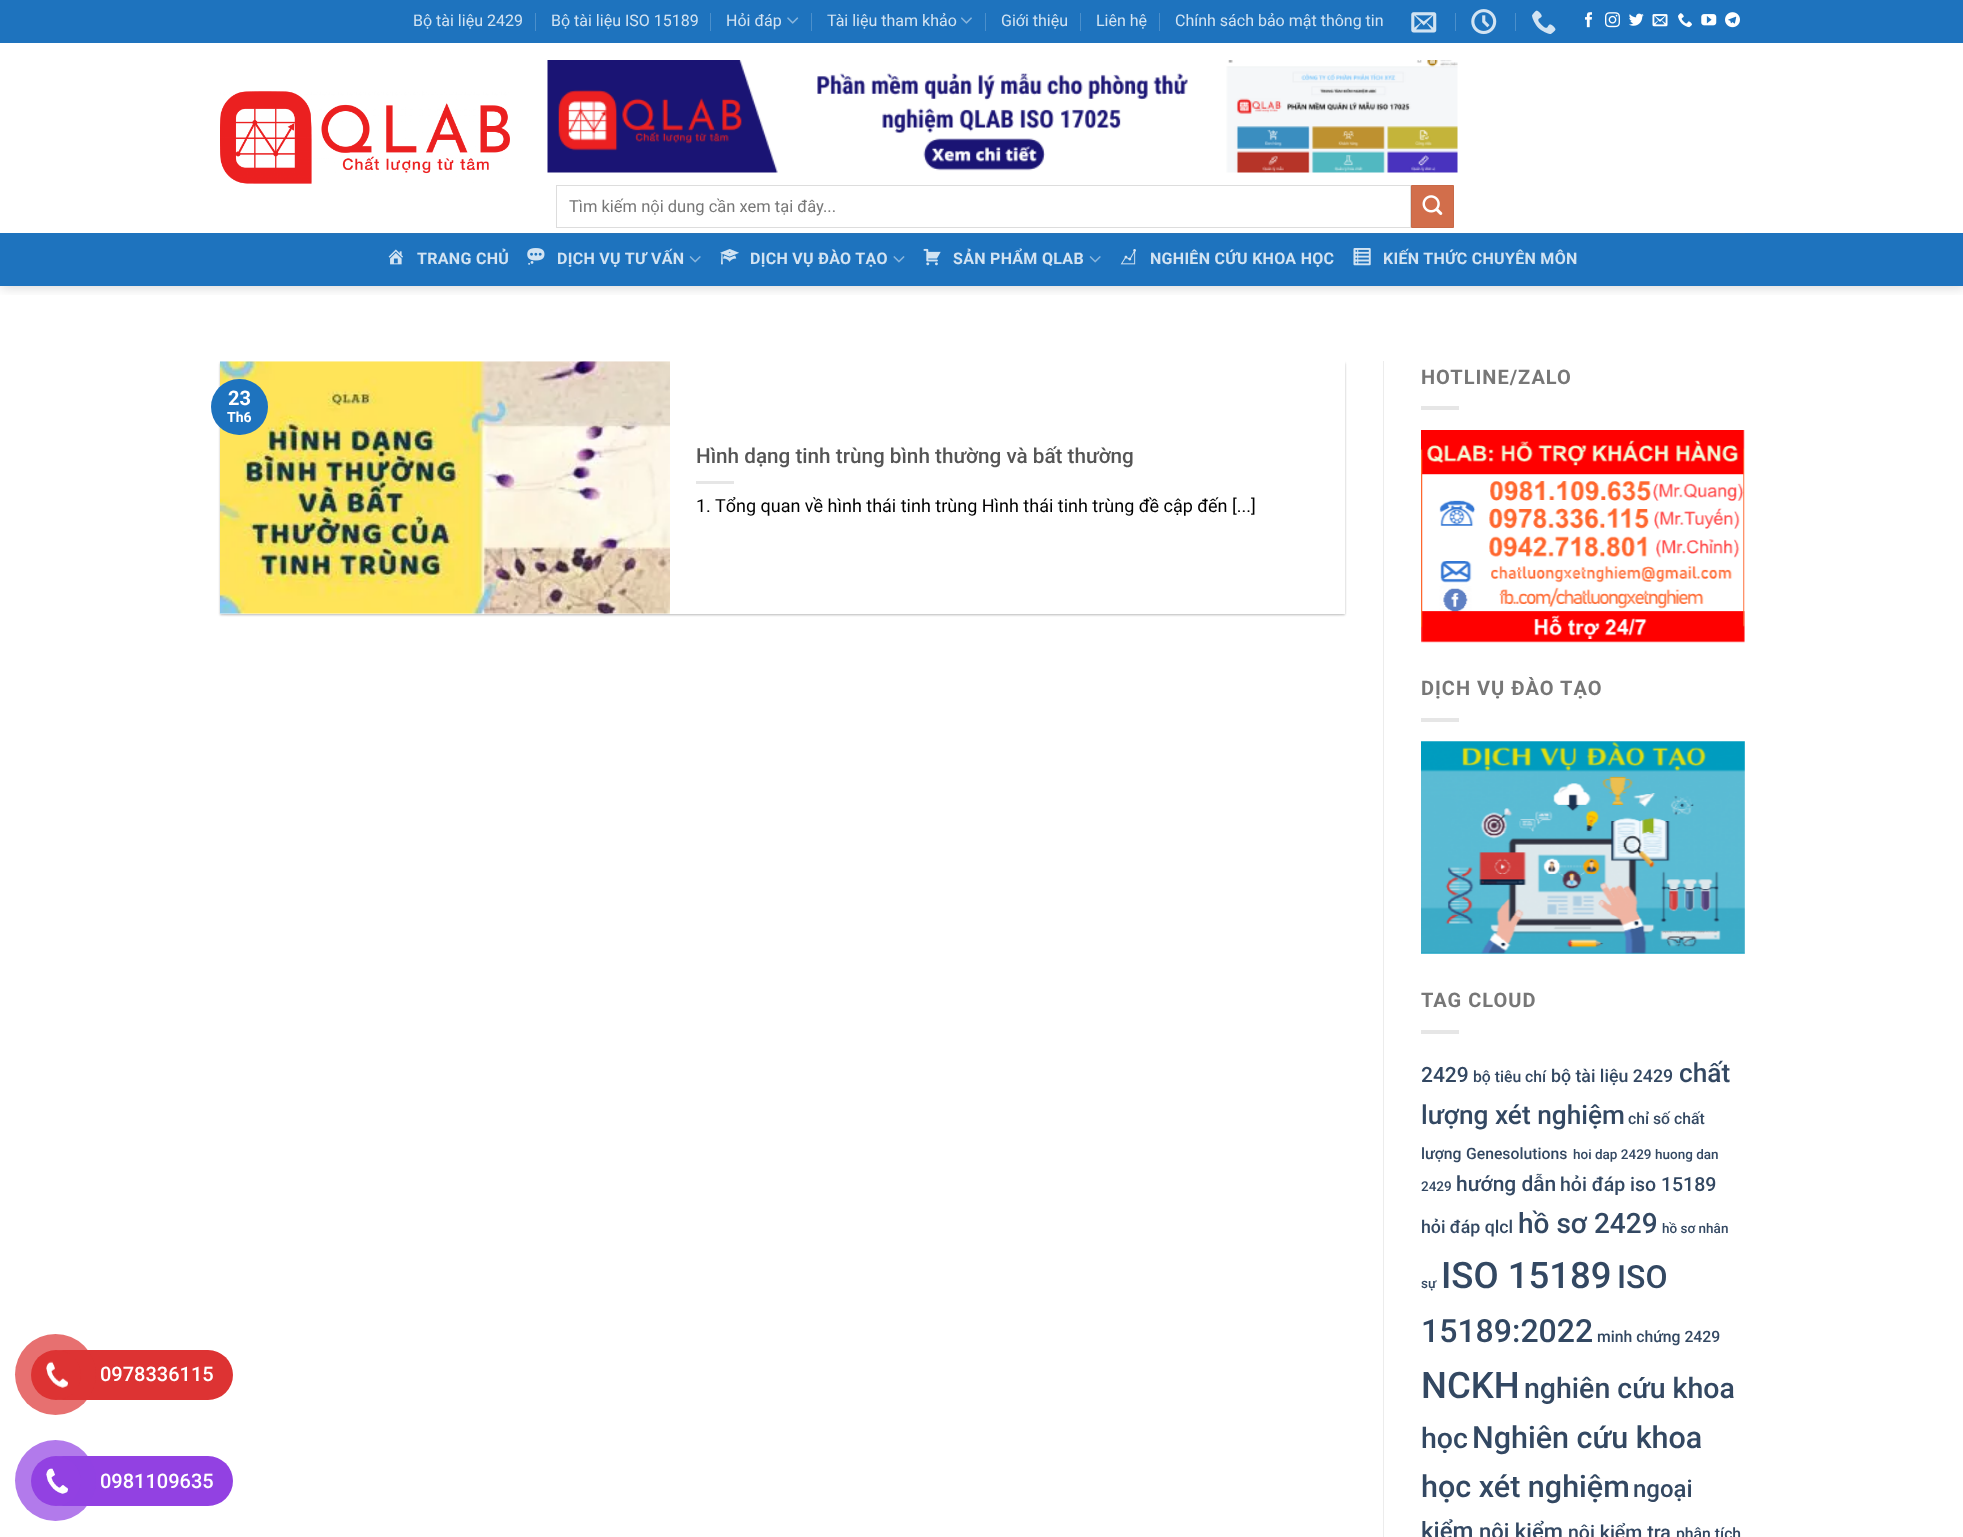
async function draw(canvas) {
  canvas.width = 1963
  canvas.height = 1537
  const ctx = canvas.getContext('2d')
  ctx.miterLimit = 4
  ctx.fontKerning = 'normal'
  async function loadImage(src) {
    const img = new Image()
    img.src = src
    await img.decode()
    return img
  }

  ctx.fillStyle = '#fff'
  ctx.fillRect(0, 0, 1963, 1537)
  ctx.fillStyle = '#d33'
  ctx.beginPath()
  ctx.roundRect(38, 1350, 195, 50, 25)
  ctx.fill()
  ctx.fillStyle = '#dd3333b3'
  ctx.beginPath()
  ctx.arc(55.5, 1374.5, 40.5, 0, 2 * Math.PI)
  ctx.fill()
  ctx.fillStyle = '#d33'
  ctx.beginPath()
  ctx.arc(56, 1375, 25, 0, 2 * Math.PI)
  ctx.fill()
  ctx.drawImage(await loadImage('image0.png'), 46, 1361, 22, 27)
  ctx.font = '500 20px Roboto'
  ctx.fillStyle = '#fff'
  ctx.fillText('0978336115', 100, 1381)
  ctx.fillStyle = '#9241e2'
  ctx.beginPath()
  ctx.roundRect(38, 1456, 195, 50, 25)
  ctx.fill()
  ctx.fillStyle = '#9241e2b3'
  ctx.beginPath()
  ctx.arc(55.5, 1480.5, 40.5, 0, 2 * Math.PI)
  ctx.fill()
  ctx.fillStyle = '#9241e2'
  ctx.beginPath()
  ctx.arc(56, 1481, 25, 0, 2 * Math.PI)
  ctx.fill()
  ctx.drawImage(await loadImage('image1.png'), 46, 1468, 22, 26)
  ctx.fillStyle = '#fff'
  ctx.fillText('0981109635', 100, 1488)
  ctx.save()
  ctx.beginPath()
  ctx.rect(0, 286, 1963, 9)
  ctx.clip()
  ctx.fillStyle = '#00000026'
  ctx.filter = 'blur(6px)'
  ctx.beginPath()
  ctx.rect(1, 1, 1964, 287)
  ctx.fill()
  ctx.filter = 'none'
  ctx.restore()
  ctx.fillStyle = '#1e73be'
  ctx.fillRect(0, 0, 1963, 43)
  ctx.font = '16px Roboto'
  ctx.fillStyle = '#d2e3f2'
  ctx.fillText('Bộ tài liệu 2429', 413, 26)
  ctx.fillStyle = '#4b8fcb'
  ctx.fillRect(535, 13, 1, 18)
  ctx.fillStyle = '#d2e3f2'
  ctx.fillText('Bộ tài liệu ISO 15189', 551, 26)
  ctx.fillStyle = '#4b8fcb'
  ctx.fillRect(710, 13, 1, 18)
  ctx.fillStyle = '#d2e3f2'
  ctx.fillText('Hỏi đáp', 726, 26)
  ctx.drawImage(await loadImage('image2.png'), 787, 17, 12, 7)
  ctx.fillStyle = '#4b8fcb'
  ctx.fillRect(811, 13, 1, 18)
  ctx.fillStyle = '#d2e3f2'
  ctx.fillText('Tài liệu tham khảo', 827, 26)
  ctx.drawImage(await loadImage('image3.png'), 961, 17, 11, 7)
  ctx.fillStyle = '#4b8fcb'
  ctx.fillRect(985, 13, 1, 18)
  ctx.fillStyle = '#d2e3f2'
  ctx.fillText('Giới thiệu', 1001, 26)
  ctx.fillStyle = '#4b8fcb'
  ctx.fillRect(1080, 13, 1, 18)
  ctx.fillStyle = '#d2e3f2'
  ctx.fillText('Liên hệ', 1096, 26)
  ctx.fillStyle = '#4b8fcb'
  ctx.fillRect(1159, 13, 1, 18)
  ctx.fillStyle = '#d2e3f2'
  ctx.fillText('Chính sách bảo mật thông tin', 1175, 26)
  ctx.drawImage(await loadImage('image4.png'), 1411, 12, 26, 21)
  ctx.fillStyle = '#4b8fcb'
  ctx.fillRect(1455, 13, 1, 18)
  ctx.drawImage(await loadImage('image5.png'), 1471, 9, 26, 26)
  ctx.fillRect(1515, 13, 1, 18)
  ctx.drawImage(await loadImage('image6.png'), 1532, 10, 24, 24)
  ctx.drawImage(await loadImage('image7.png'), 1585, 12, 7, 16)
  ctx.drawImage(await loadImage('image8.png'), 1605, 12, 15, 16)
  ctx.drawImage(await loadImage('image9.png'), 1629, 13, 15, 13)
  ctx.drawImage(await loadImage('image10.png'), 1652, 14, 16, 13)
  ctx.drawImage(await loadImage('image11.png'), 1678, 13, 14, 15)
  ctx.drawImage(await loadImage('image12.png'), 1701, 14, 16, 12)
  ctx.drawImage(await loadImage('image13.png'), 1725, 12, 15, 16)
  ctx.drawImage(await loadImage('image14.png'), 220, 91, 290, 93)
  ctx.drawImage(await loadImage('image15.png'), 547, 60, 911, 113)
  ctx.strokeStyle = '#ddd'
  ctx.strokeRect(556.5, 185.5, 854, 42)
  ctx.font = '16.5px Roboto'
  ctx.fillStyle = '#777'
  ctx.fillText('Tìm kiếm nội dung cần xem tại đây...', 569, 212)
  ctx.fillStyle = '#d26e4b'
  ctx.beginPath()
  ctx.rect(1411.5, 185.5, 42, 42)
  ctx.fill()
  ctx.strokeStyle = '#c86947'
  ctx.stroke()
  ctx.drawImage(await loadImage('image16.png'), 1422, 195, 21, 20)
  ctx.fillStyle = '#1e73be'
  ctx.fillRect(0, 233, 1963, 53)
  ctx.fillStyle = '#2773b7'
  ctx.fillRect(220, 233, 1525, 1)
  ctx.drawImage(await loadImage('image17.png'), 388, 249, 15, 16)
  ctx.letterSpacing = '0.3px'
  ctx.font = 'bold 16px Roboto'
  ctx.fillStyle = '#d2e3f2'
  ctx.fillText('TRANG CHỦ', 417, 264)
  ctx.drawImage(await loadImage('image18.png'), 527, 248, 18, 17)
  ctx.fillText('DỊCH VỤ TƯ VẤN', 557, 264)
  ctx.drawImage(await loadImage('image19.png'), 689, 256, 12, 7)
  ctx.drawImage(await loadImage('image20.png'), 720, 249, 19, 16)
  ctx.fillText('DỊCH VỤ ĐÀO TẠO', 750, 264)
  ctx.drawImage(await loadImage('image21.png'), 893, 256, 12, 7)
  ctx.drawImage(await loadImage('image22.png'), 923, 248, 18, 18)
  ctx.fillText('SẢN PHẨM QLAB', 953, 264)
  ctx.drawImage(await loadImage('image19.png'), 1089, 256, 12, 7)
  ctx.drawImage(await loadImage('image23.png'), 1120, 249, 16, 16)
  ctx.fillText('NGHIÊN CỨU KHOA HỌC', 1150, 264)
  ctx.drawImage(await loadImage('image24.png'), 1353, 248, 18, 18)
  ctx.fillText('KIẾN THỨC CHUYÊN MÔN', 1383, 264)
  ctx.fillStyle = '#0000003d'
  ctx.filter = 'blur(1px)'
  ctx.beginPath()
  ctx.rect(220, 363, 1125, 252)
  ctx.fill()
  ctx.filter = 'none'
  ctx.fillStyle = '#0000001f'
  ctx.filter = 'blur(2px)'
  ctx.beginPath()
  ctx.rect(223, 365, 1120, 248)
  ctx.fill()
  ctx.filter = 'none'
  ctx.fillStyle = '#fff'
  ctx.fillRect(220, 361, 1125, 253)
  ctx.drawImage(await loadImage('image25.png'), 220, 361, 450, 253)
  ctx.fillStyle = '#1e73be'
  ctx.beginPath()
  ctx.roundRect(211, 379, 57, 56, 28)
  ctx.fill()
  ctx.letterSpacing = '0px'
  ctx.font = 'bold 20px Roboto'
  ctx.fillStyle = '#fff'
  ctx.fillText('23', 228, 405)
  ctx.font = 'bold 14px Roboto'
  ctx.fillText('Th6', 227, 422)
  ctx.font = '500 20.7px Roboto'
  ctx.fillStyle = '#555'
  ctx.fillText('Hình dạng tinh trùng bình thường và bất thường', 696, 463)
  ctx.fillStyle = '#e6e6e6'
  ctx.fillRect(696, 481, 38, 3)
  ctx.font = '18px Roboto'
  ctx.fillStyle = '#000'
  ctx.fillText('1. Tổng quan về hình thái tinh trùng Hình thái tinh trùng đề cập đến [...]', 696, 512)
  ctx.fillStyle = '#ececec'
  ctx.fillRect(1383, 361, 1, 1176)
  ctx.letterSpacing = '1px'
  ctx.font = 'bold 20px Roboto'
  ctx.fillStyle = '#777'
  ctx.fillText('HOTLINE/ZALO', 1421, 384)
  ctx.fillStyle = '#e6e6e6'
  ctx.fillRect(1421, 406, 38, 4)
  ctx.drawImage(await loadImage('image26.png'), 1421, 430, 324, 213)
  ctx.fillStyle = '#777'
  ctx.fillText('DỊCH VỤ ĐÀO TẠO', 1421, 695)
  ctx.fillStyle = '#e6e6e6'
  ctx.fillRect(1421, 718, 38, 4)
  ctx.drawImage(await loadImage('image27.png'), 1421, 741, 324, 213)
  ctx.fillStyle = '#777'
  ctx.fillText('TAG CLOUD', 1421, 1007)
  ctx.fillStyle = '#e6e6e6'
  ctx.fillRect(1421, 1030, 38, 4)
  ctx.letterSpacing = '0px'
  ctx.font = '500 21px Roboto'
  ctx.fillStyle = '#334862'
  ctx.fillText('2429', 1421, 1082)
  ctx.font = '500 15.75px Roboto'
  ctx.fillText('bộ tiêu chí', 1473, 1082)
  ctx.font = '500 17.75px Roboto'
  ctx.fillText('bộ tài liệu 2429', 1551, 1082)
  ctx.font = '500 26.25px Roboto'
  ctx.fillText('chất', 1679, 1082)
  ctx.fillText('lượng xét nghiệm', 1421, 1124)
  ctx.font = '500 15.75px Roboto'
  ctx.fillText('chỉ số chất', 1628, 1124)
  ctx.fillText('lượng', 1421, 1159)
  ctx.fillText('Genesolutions', 1466, 1159)
  ctx.font = '500 13.5px Roboto'
  ctx.fillText('hoi dap 2429', 1573, 1159)
  ctx.fillText('huong dan', 1655, 1159)
  ctx.fillText('2429', 1421, 1191)
  ctx.font = '500 21px Roboto'
  ctx.fillText('hướng dẫn', 1456, 1191)
  ctx.font = '500 19.5px Roboto'
  ctx.fillText('hỏi đáp iso 15189', 1560, 1191)
  ctx.font = '500 17.75px Roboto'
  ctx.fillText('hỏi đáp qlcl', 1421, 1233)
  ctx.font = '500 28px Roboto'
  ctx.fillText('hồ sơ 2429', 1518, 1233)
  ctx.font = '500 13.5px Roboto'
  ctx.fillText('hồ sơ nhân', 1662, 1233)
  ctx.fillText('sự', 1421, 1288)
  ctx.font = '500 36.5px Roboto'
  ctx.fillText('ISO 15189', 1441, 1288)
  ctx.font = '500 32px Roboto'
  ctx.fillText('ISO', 1617, 1288)
  ctx.fillText('15189:2022', 1421, 1342)
  ctx.font = '500 15.75px Roboto'
  ctx.fillText('minh chứng 2429', 1597, 1342)
  ctx.font = '500 36.5px Roboto'
  ctx.fillText('NCKH', 1421, 1398)
  ctx.font = '500 28.5px Roboto'
  ctx.fillText('nghiên cứu khoa', 1524, 1398)
  ctx.fillText('học', 1421, 1448)
  ctx.font = '500 30.5px Roboto'
  ctx.fillText('Nghiên cứu khoa', 1472, 1448)
  ctx.fillText('học xét nghiệm', 1421, 1497)
  ctx.font = '500 24px Roboto'
  ctx.fillText('ngoại', 1633, 1497)
  ctx.fillText('kiểm', 1421, 1539)
  ctx.font = '500 22px Roboto'
  ctx.fillText('nội kiểm', 1479, 1539)
  ctx.font = '500 19.5px Roboto'
  ctx.fillText('nội kiểm tra', 1568, 1539)
  ctx.font = '500 15.75px Roboto'
  ctx.fillText('phân tích', 1676, 1539)
}

draw(document.querySelector('canvas'))
